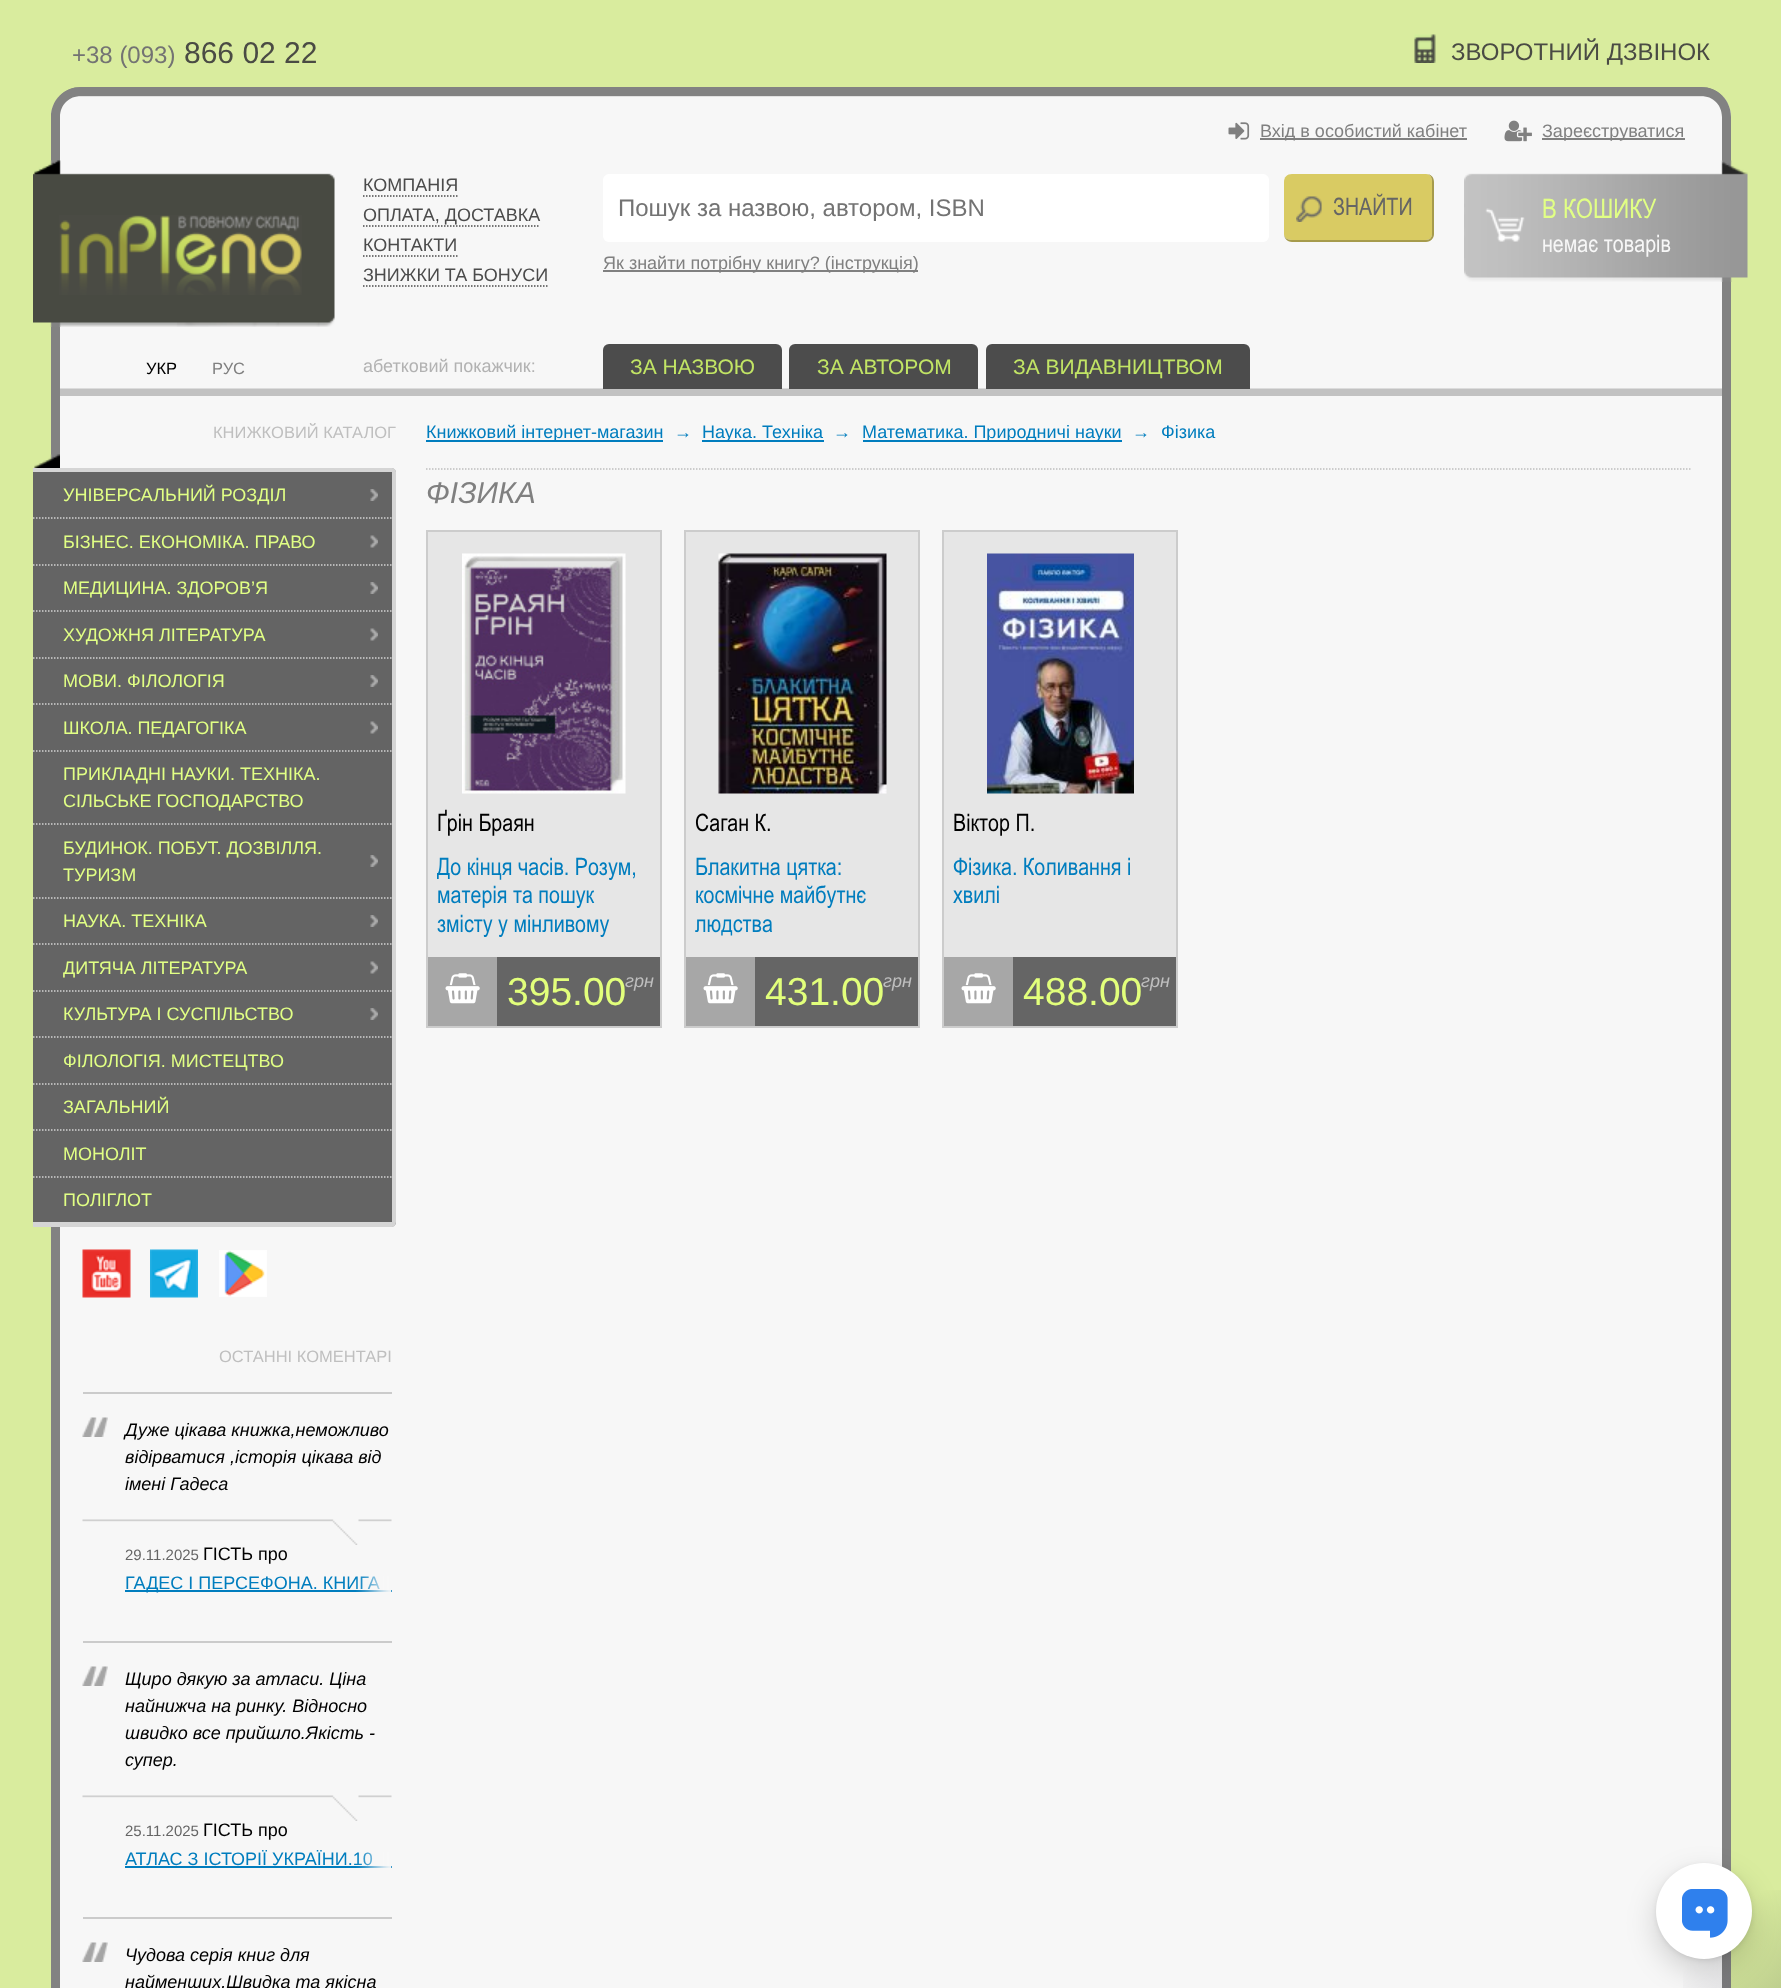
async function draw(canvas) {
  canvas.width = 1781
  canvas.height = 1988
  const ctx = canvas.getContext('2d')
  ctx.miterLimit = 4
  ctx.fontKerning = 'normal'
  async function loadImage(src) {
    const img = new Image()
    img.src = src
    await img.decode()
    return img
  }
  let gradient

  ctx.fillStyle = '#d9ec9e'
  ctx.fillRect(0, 0, 1781, 1988)
  ctx.drawImage(await loadImage('image0.png'), 51, 87, 1680, 309)
  ctx.fillStyle = '#828282'
  ctx.beginPath()
  ctx.moveTo(81, 87)
  ctx.lineTo(1701, 87)
  ctx.bezierCurveTo(1718, 87, 1731, 100, 1731, 117)
  ctx.lineTo(1731, 396)
  ctx.lineTo(51, 396)
  ctx.lineTo(51, 117)
  ctx.bezierCurveTo(51, 100, 64, 87, 81, 87)
  ctx.closePath()
  ctx.moveTo(81, 96)
  ctx.lineTo(1701, 96)
  ctx.bezierCurveTo(1713, 96, 1722, 105, 1722, 117)
  ctx.lineTo(1722, 396)
  ctx.lineTo(60, 396)
  ctx.lineTo(60, 117)
  ctx.bezierCurveTo(60, 105, 69, 96, 81, 96)
  ctx.closePath()
  ctx.fill('evenodd')
  ctx.font = '24px Liberation Sans'
  ctx.fillStyle = '#737373'
  ctx.fillText('+38 (093)', 72, 63)
  ctx.font = '30px Liberation Sans'
  ctx.fillStyle = '#4a4b44'
  ctx.fillText('866 02 22', 184, 63)
  ctx.drawImage(await loadImage('image1.png'), 1414, 34, 22, 29)
  ctx.font = '24px Liberation Sans'
  ctx.fillText('ЗВОРОТНИЙ ДЗВІНОК', 1451, 60)
  ctx.drawImage(await loadImage('image2.png'), 1228, 122, 22, 18)
  ctx.fillStyle = '#808080'
  ctx.fillRect(1260, 138, 207, 2)
  ctx.font = '18px Liberation Sans'
  ctx.fillText('Вхід в особистий кабінет', 1260, 137)
  ctx.drawImage(await loadImage('image3.png'), 1504, 120, 28, 22)
  ctx.fillRect(1542, 138, 143, 2)
  ctx.fillText('Зареєструватися', 1542, 137)
  ctx.drawImage(await loadImage('image4.png'), 33, 160, 302, 167)
  ctx.drawImage(await loadImage('image5.png'), 59, 215, 243, 80)
  ctx.fillStyle = '#4b4b4b'
  ctx.fillText('КОМПАНІЯ', 363, 191)
  ctx.beginPath()
  ctx.moveTo(363, 196)
  ctx.lineTo(457.5, 196)
  ctx.strokeStyle = '#4b4b4b'
  ctx.lineWidth = 1.5
  ctx.setLineDash([1.5, 1.5])
  ctx.stroke()
  ctx.fillText('ОПЛАТА, ДОСТАВКА', 363, 221)
  ctx.beginPath()
  ctx.moveTo(363, 226)
  ctx.lineTo(540, 226)
  ctx.stroke()
  ctx.fillText('КОНТАКТИ', 363, 251)
  ctx.beginPath()
  ctx.moveTo(363, 256)
  ctx.lineTo(457.5, 256)
  ctx.stroke()
  ctx.fillText('ЗНИЖКИ ТА БОНУСИ', 363, 281)
  ctx.beginPath()
  ctx.moveTo(363, 286)
  ctx.lineTo(549, 286)
  ctx.stroke()
  ctx.fillStyle = '#fff'
  ctx.beginPath()
  ctx.roundRect(603, 174, 666, 68, 6)
  ctx.fill()
  ctx.font = '24px Liberation Sans'
  ctx.fillStyle = '#737373'
  ctx.fillText('Пошук за назвою, автором, ISBN', 618, 216)
  ctx.fillStyle = '#d9cb63'
  ctx.beginPath()
  ctx.moveTo(1292, 174)
  ctx.lineTo(1426, 174)
  ctx.bezierCurveTo(1430, 174, 1432, 177, 1432, 182)
  ctx.lineTo(1432, 234)
  ctx.bezierCurveTo(1432, 237, 1430, 240, 1426, 240)
  ctx.lineTo(1292, 240)
  ctx.bezierCurveTo(1287, 240, 1284, 237, 1284, 234)
  ctx.lineTo(1284, 182)
  ctx.bezierCurveTo(1284, 177, 1287, 174, 1292, 174)
  ctx.closePath()
  ctx.fill()
  ctx.drawImage(await loadImage('image6.png'), 1296, 196, 26, 26)
  ctx.fillStyle = '#a69b4c'
  ctx.beginPath()
  ctx.moveTo(1292, 174)
  ctx.lineTo(1426, 174)
  ctx.bezierCurveTo(1431, 174, 1434, 177, 1434, 182)
  ctx.lineTo(1434, 234)
  ctx.bezierCurveTo(1434, 238, 1431, 242, 1426, 242)
  ctx.lineTo(1292, 242)
  ctx.bezierCurveTo(1287, 242, 1284, 238, 1284, 234)
  ctx.lineTo(1284, 182)
  ctx.bezierCurveTo(1284, 177, 1287, 174, 1292, 174)
  ctx.closePath()
  ctx.moveTo(1292, 174)
  ctx.lineTo(1426, 174)
  ctx.bezierCurveTo(1430, 174, 1432, 177, 1432, 182)
  ctx.lineTo(1432, 234)
  ctx.bezierCurveTo(1432, 237, 1430, 240, 1426, 240)
  ctx.lineTo(1292, 240)
  ctx.bezierCurveTo(1287, 240, 1284, 237, 1284, 234)
  ctx.lineTo(1284, 182)
  ctx.bezierCurveTo(1284, 177, 1287, 174, 1292, 174)
  ctx.closePath()
  ctx.fill('evenodd')
  ctx.font = '24px Arial'
  ctx.fillStyle = '#656565'
  ctx.fillText('ЗНАЙТИ', 1333, 215)
  ctx.fillStyle = '#808080'
  ctx.fillRect(603, 270, 315, 2)
  ctx.font = '18px Liberation Sans'
  ctx.fillText('Як знайти потрібну книгу? (інструкція)', 603, 269)
  ctx.drawImage(await loadImage('image7.png'), 1464, 160, 284, 122)
  ctx.font = '27px Arial'
  ctx.fillStyle = '#e1ff85'
  ctx.fillText('В КОШИКУ', 1542, 218)
  ctx.font = '24px Arial'
  ctx.fillStyle = '#f7f7f7'
  ctx.fillText('немає товарів', 1542, 252)
  ctx.font = '16.5px Liberation Sans'
  ctx.fillStyle = '#000'
  ctx.fillText('УКР', 146, 374)
  ctx.fillStyle = '#808080'
  ctx.fillText('РУС', 212, 374)
  ctx.font = '18px Liberation Sans'
  ctx.fillStyle = '#b2b2b2'
  ctx.fillText('абетковий покажчик:', 363, 372)
  ctx.fillStyle = '#4c4c4c'
  ctx.beginPath()
  ctx.roundRect(603, 344, 179, 45, [6, 6, 0, 0])
  ctx.fill()
  ctx.font = '21px Liberation Sans'
  ctx.fillStyle = '#c2e565'
  ctx.fillText('ЗА НАЗВОЮ', 630, 374)
  ctx.fillStyle = '#4c4c4c'
  ctx.beginPath()
  ctx.roundRect(789, 344, 189, 45, [6, 6, 0, 0])
  ctx.fill()
  ctx.fillStyle = '#c2e565'
  ctx.fillText('ЗА АВТОРОМ', 817, 374)
  ctx.fillStyle = '#4c4c4c'
  ctx.beginPath()
  ctx.roundRect(986, 344, 264, 45, [6, 6, 0, 0])
  ctx.fill()
  ctx.fillStyle = '#c2e565'
  ctx.fillText('ЗА ВИДАВНИЦТВОМ', 1013, 374)
  ctx.fillStyle = '#f7f7f7'
  ctx.fillRect(60, 396, 1662, 1592)
  ctx.fillStyle = '#828282'
  ctx.beginPath()
  ctx.moveTo(51, 396)
  ctx.lineTo(1731, 396)
  ctx.lineTo(1731, 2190)
  ctx.bezierCurveTo(1731, 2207, 1718, 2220, 1701, 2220)
  ctx.lineTo(81, 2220)
  ctx.bezierCurveTo(64, 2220, 51, 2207, 51, 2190)
  ctx.closePath()
  ctx.moveTo(60, 396)
  ctx.lineTo(1722, 396)
  ctx.lineTo(1722, 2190)
  ctx.bezierCurveTo(1722, 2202, 1713, 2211, 1701, 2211)
  ctx.lineTo(81, 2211)
  ctx.bezierCurveTo(69, 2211, 60, 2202, 60, 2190)
  ctx.closePath()
  ctx.fill('evenodd')
  ctx.drawImage(await loadImage('image8.png'), 34, 454, 26, 14)
  ctx.font = '16.5px Liberation Sans'
  ctx.fillStyle = '#bfbfbf'
  ctx.fillText('КНИЖКОВИЙ КАТАЛОГ', 213, 438)
  ctx.fillStyle = '#646464'
  ctx.beginPath()
  ctx.roundRect(33, 468, 363, 759, [0, 5, 5, 0])
  ctx.fill()
  ctx.fillStyle = '#d5d5d5'
  ctx.beginPath()
  ctx.moveTo(33, 468)
  ctx.lineTo(392, 468)
  ctx.bezierCurveTo(394, 468, 396, 470, 396, 472)
  ctx.lineTo(396, 1222)
  ctx.bezierCurveTo(396, 1225, 394, 1227, 392, 1227)
  ctx.lineTo(33, 1227)
  ctx.closePath()
  ctx.moveTo(33, 472)
  ctx.lineTo(392, 472)
  ctx.lineTo(392, 1222)
  ctx.lineTo(33, 1222)
  ctx.closePath()
  ctx.fill('evenodd')
  ctx.drawImage(await loadImage('image9.png'), 370, 489, 8, 12)
  ctx.beginPath()
  ctx.moveTo(33, 518)
  ctx.lineTo(391.5, 518)
  ctx.strokeStyle = '#d2d2d2'
  ctx.stroke()
  ctx.font = '18px Liberation Sans'
  ctx.fillStyle = '#e1ff85'
  ctx.fillText('УНІВЕРСАЛЬНИЙ РОЗДІЛ', 63, 501)
  ctx.drawImage(await loadImage('image10.png'), 370, 535, 8, 13)
  ctx.beginPath()
  ctx.moveTo(33, 565)
  ctx.lineTo(391.5, 565)
  ctx.stroke()
  ctx.fillText('БІЗНЕС. ЕКОНОМІКА. ПРАВО', 63, 548)
  ctx.drawImage(await loadImage('image9.png'), 370, 582, 8, 12)
  ctx.beginPath()
  ctx.moveTo(33, 611)
  ctx.lineTo(391.5, 611)
  ctx.stroke()
  ctx.fillText('МЕДИЦИНА. ЗДОРОВ’Я', 63, 594)
  ctx.drawImage(await loadImage('image10.png'), 370, 628, 8, 13)
  ctx.beginPath()
  ctx.moveTo(33, 658)
  ctx.lineTo(391.5, 658)
  ctx.stroke()
  ctx.fillText('ХУДОЖНЯ ЛІТЕРАТУРА', 63, 641)
  ctx.drawImage(await loadImage('image9.png'), 370, 675, 8, 12)
  ctx.beginPath()
  ctx.moveTo(33, 704)
  ctx.lineTo(391.5, 704)
  ctx.stroke()
  ctx.fillText('МОВИ. ФІЛОЛОГІЯ', 63, 687)
  ctx.drawImage(await loadImage('image10.png'), 370, 721, 8, 13)
  ctx.beginPath()
  ctx.moveTo(33, 751)
  ctx.lineTo(391.5, 751)
  ctx.stroke()
  ctx.fillText('ШКОЛА. ПЕДАГОГІКА', 63, 734)
  ctx.beginPath()
  ctx.moveTo(33, 824)
  ctx.lineTo(391.5, 824)
  ctx.stroke()
  ctx.fillText('ПРИКЛАДНІ НАУКИ. ТЕХНІКА.', 63, 780)
  ctx.fillText('СІЛЬСЬКЕ ГОСПОДАРСТВО', 63, 807)
  ctx.drawImage(await loadImage('image9.png'), 370, 855, 8, 12)
  ctx.beginPath()
  ctx.moveTo(33, 898)
  ctx.lineTo(391.5, 898)
  ctx.stroke()
  ctx.fillText('БУДИНОК. ПОБУТ. ДОЗВІЛЛЯ.', 63, 854)
  ctx.fillText('ТУРИЗМ', 63, 881)
  ctx.drawImage(await loadImage('image9.png'), 370, 915, 8, 12)
  ctx.beginPath()
  ctx.moveTo(33, 944)
  ctx.lineTo(391.5, 944)
  ctx.stroke()
  ctx.fillText('НАУКА. ТЕХНІКА', 63, 927)
  ctx.drawImage(await loadImage('image10.png'), 370, 961, 8, 13)
  ctx.beginPath()
  ctx.moveTo(33, 991)
  ctx.lineTo(391.5, 991)
  ctx.stroke()
  ctx.fillText('ДИТЯЧА ЛІТЕРАТУРА', 63, 974)
  ctx.drawImage(await loadImage('image9.png'), 370, 1008, 8, 12)
  ctx.beginPath()
  ctx.moveTo(33, 1037)
  ctx.lineTo(391.5, 1037)
  ctx.stroke()
  ctx.fillText('КУЛЬТУРА І СУСПІЛЬСТВО', 63, 1020)
  ctx.beginPath()
  ctx.moveTo(33, 1084)
  ctx.lineTo(391.5, 1084)
  ctx.stroke()
  ctx.fillText('ФІЛОЛОГІЯ. МИСТЕЦТВО', 63, 1067)
  ctx.beginPath()
  ctx.moveTo(33, 1130)
  ctx.lineTo(391.5, 1130)
  ctx.stroke()
  ctx.fillText('ЗАГАЛЬНИЙ', 63, 1113)
  ctx.beginPath()
  ctx.moveTo(33, 1177)
  ctx.lineTo(391.5, 1177)
  ctx.stroke()
  ctx.fillText('МОНОЛІТ', 63, 1160)
  ctx.fillText('ПОЛІГЛОТ', 63, 1206)
  ctx.drawImage(await loadImage('image11.png'), 82, 1249, 49, 49)
  ctx.drawImage(await loadImage('image12.png'), 150, 1249, 48, 49)
  ctx.drawImage(await loadImage('image13.png'), 219, 1250, 48, 47)
  ctx.font = '16.5px Liberation Sans'
  ctx.fillStyle = '#bfbfbf'
  ctx.fillText('ОСТАННІ КОМЕНТАРІ', 219, 1362)
  ctx.drawImage(await loadImage('image14.png'), 82, 1417, 26, 20)
  ctx.drawImage(await loadImage('image15.png'), 82, 1519, 310, 26)
  ctx.fillStyle = '#cbcbcb'
  ctx.fillRect(83, 1392, 309, 2)
  ctx.font = 'italic 18px Liberation Sans'
  ctx.fillStyle = '#000'
  ctx.fillText('Дуже цікава книжка,неможливо', 125, 1436)
  ctx.fillText('відірватися ,історія цікава від', 125, 1463)
  ctx.fillText('імені Гадеса', 125, 1490)
  ctx.font = '15px Liberation Sans'
  ctx.fillStyle = '#656565'
  ctx.fillText('29.11.2025', 125, 1560)
  ctx.font = '18px Liberation Sans'
  ctx.fillStyle = '#000'
  ctx.fillText('ГІСТЬ про', 203, 1560)
  ctx.fillStyle = '#007dbe'
  ctx.fillRect(125, 1590, 267, 2)
  ctx.fillText('ГАДЕС І ПЕРСЕФОНА. КНИГА', 125, 1589)
  ctx.drawImage(await loadImage('image16.png'), 356, 1576, 36, 16)
  ctx.drawImage(await loadImage('image14.png'), 82, 1666, 26, 20)
  ctx.drawImage(await loadImage('image15.png'), 82, 1795, 310, 26)
  ctx.fillStyle = '#cbcbcb'
  ctx.fillRect(83, 1641, 309, 2)
  ctx.font = 'italic 18px Liberation Sans'
  ctx.fillStyle = '#000'
  ctx.fillText('Щиро дякую за атласи. Ціна', 125, 1685)
  ctx.fillText('найнижча на ринку. Відносно', 125, 1712)
  ctx.fillText('швидко все прийшло.Якість -', 125, 1739)
  ctx.fillText('супер.', 125, 1766)
  ctx.font = '15px Liberation Sans'
  ctx.fillStyle = '#656565'
  ctx.fillText('25.11.2025', 125, 1836)
  ctx.font = '18px Liberation Sans'
  ctx.fillStyle = '#000'
  ctx.fillText('ГІСТЬ про', 203, 1836)
  ctx.fillStyle = '#007dbe'
  ctx.fillText('АТЛАС З ІСТОРІЇ УКРАЇНИ.10', 125, 1865)
  ctx.fillRect(125, 1866, 267, 2)
  ctx.drawImage(await loadImage('image17.png'), 356, 1852, 36, 16)
  ctx.drawImage(await loadImage('image14.png'), 82, 1942, 26, 20)
  ctx.fillStyle = '#cbcbcb'
  ctx.fillRect(83, 1917, 309, 2)
  ctx.font = 'italic 18px Liberation Sans'
  ctx.fillStyle = '#000'
  ctx.fillText('Чудова серія книг для', 125, 1961)
  ctx.fillText('найменших.Швидка та якісна', 125, 1988)
  ctx.fillStyle = '#007dbe'
  ctx.fillRect(426, 440, 237, 2)
  ctx.font = '18px Liberation Sans'
  ctx.fillText('Книжковий інтернет-магазин', 426, 438)
  ctx.fillText('→', 674, 438)
  ctx.fillRect(702, 440, 122, 2)
  ctx.fillText('Наука. Техніка', 702, 438)
  ctx.fillText('→', 833, 438)
  ctx.fillRect(863, 440, 259, 2)
  ctx.fillText('Математика. Природничі науки', 862, 438)
  ctx.fillText('→', 1132, 438)
  ctx.fillText('Фізика', 1161, 438)
  ctx.beginPath()
  ctx.moveTo(426, 469)
  ctx.lineTo(1692, 469)
  ctx.strokeStyle = '#bfbfbf'
  ctx.stroke()
  ctx.font = 'italic 30px Liberation Sans'
  ctx.fillStyle = '#808080'
  ctx.fillText('ФІЗИКА', 426, 503)
  ctx.fillStyle = '#e6e6e6'
  ctx.fillRect(428, 532, 232, 425)
  ctx.strokeStyle = '#ccc'
  ctx.lineWidth = 2
  ctx.setLineDash([])
  ctx.strokeRect(427, 531, 234, 496)
  ctx.drawImage(await loadImage('image18.png'), 462, 553, 164, 241)
  ctx.font = '24px Arial'
  ctx.fillStyle = '#000'
  ctx.fillText('Ґрін Браян', 437, 831)
  ctx.save()
  ctx.beginPath()
  ctx.rect(437, 852, 214, 86)
  ctx.clip()
  ctx.fillStyle = '#007dbe'
  ctx.fillText('До кінця часів. Розум,', 437, 875)
  ctx.restore()
  ctx.fillStyle = '#007dbe'
  ctx.fillText('матерія та пошук', 437, 903)
  ctx.fillText('змісту у мінливому', 437, 932)
  ctx.fillStyle = '#a7a7a7'
  ctx.fillRect(428, 957, 69, 69)
  ctx.drawImage(await loadImage('image19.png'), 445, 973, 35, 31)
  ctx.fillStyle = '#656565'
  ctx.fillRect(497, 957, 163, 69)
  ctx.font = '39px Liberation Sans'
  ctx.fillStyle = '#e2ff7b'
  ctx.fillText('395.00', 507, 1005)
  ctx.font = 'italic 18px Liberation Sans'
  ctx.fillStyle = '#bfbfbf'
  ctx.fillText('грн', 625, 987)
  ctx.fillStyle = '#e6e6e6'
  ctx.fillRect(686, 532, 232, 425)
  ctx.strokeRect(685, 531, 234, 496)
  ctx.drawImage(await loadImage('image20.png'), 718, 553, 169, 241)
  ctx.font = '24px Arial'
  ctx.fillStyle = '#000'
  ctx.fillText('Саган К.', 695, 831)
  ctx.fillStyle = '#007dbe'
  ctx.fillText('Блакитна цятка:', 695, 875)
  ctx.fillText('космічне майбутнє', 695, 903)
  ctx.fillText('людства', 695, 932)
  ctx.fillStyle = '#a7a7a7'
  ctx.fillRect(686, 957, 69, 69)
  ctx.drawImage(await loadImage('image19.png'), 703, 973, 35, 31)
  ctx.fillStyle = '#656565'
  ctx.fillRect(755, 957, 163, 69)
  ctx.font = '39px Liberation Sans'
  ctx.fillStyle = '#e2ff7b'
  ctx.fillText('431.00', 765, 1005)
  ctx.font = 'italic 18px Liberation Sans'
  ctx.fillStyle = '#bfbfbf'
  ctx.fillText('грн', 883, 987)
  ctx.fillStyle = '#e6e6e6'
  ctx.fillRect(944, 532, 232, 425)
  ctx.strokeRect(943, 531, 234, 496)
  ctx.drawImage(await loadImage('image21.png'), 987, 553, 147, 241)
  ctx.font = '24px Arial'
  ctx.fillStyle = '#000'
  ctx.fillText('Віктор П.', 953, 831)
  ctx.fillStyle = '#007dbe'
  ctx.fillText('Фізика. Коливання і', 953, 875)
  ctx.fillText('хвилі', 953, 903)
  ctx.fillStyle = '#a7a7a7'
  ctx.fillRect(944, 957, 69, 69)
  ctx.drawImage(await loadImage('image19.png'), 961, 973, 35, 31)
  ctx.fillStyle = '#656565'
  ctx.fillRect(1013, 957, 163, 69)
  ctx.font = '39px Liberation Sans'
  ctx.fillStyle = '#e2ff7b'
  ctx.fillText('488.00', 1023, 1005)
  ctx.font = 'italic 18px Liberation Sans'
  ctx.fillStyle = '#bfbfbf'
  ctx.fillText('грн', 1141, 987)
  gradient = ctx.createLinearGradient(1632, 1839, 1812, 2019)
  gradient.addColorStop(0.5, '#0e0e2900')
  gradient.addColorStop(1, '#0e0e2933')
  ctx.fillStyle = gradient
  ctx.fillRect(1683, 1890, 98, 98)
  ctx.fillStyle = '#00000029'
  ctx.filter = 'blur(15px)'
  ctx.beginPath()
  ctx.roundRect(1656, 1875, 96, 96, 48)
  ctx.fill()
  ctx.filter = 'none'
  ctx.fillStyle = '#00000052'
  ctx.filter = 'blur(4px)'
  ctx.beginPath()
  ctx.roundRect(1661, 1869, 87, 87, 43.5)
  ctx.fill()
  ctx.filter = 'none'
  ctx.fillStyle = '#fff'
  ctx.beginPath()
  ctx.arc(1704, 1911, 48, 0, 2 * Math.PI)
  ctx.fill()
  ctx.drawImage(await loadImage('image22.png'), 1682, 1889, 46, 49)
}

draw(document.querySelector('canvas'))
